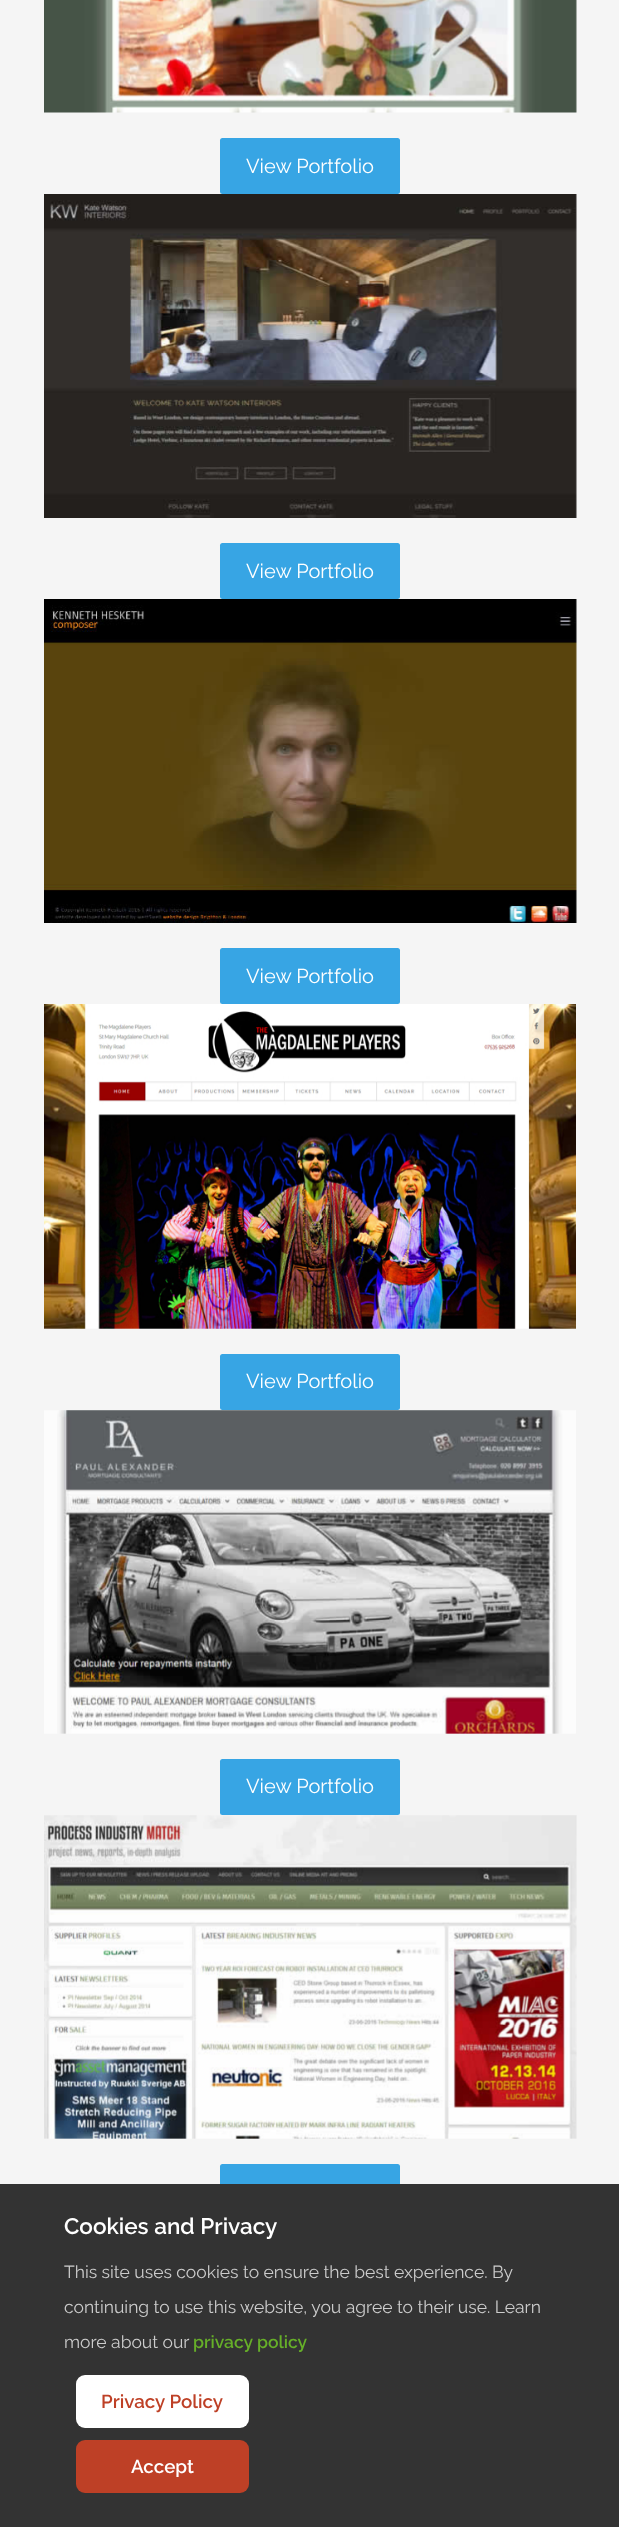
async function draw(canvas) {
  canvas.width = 619
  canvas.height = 2527
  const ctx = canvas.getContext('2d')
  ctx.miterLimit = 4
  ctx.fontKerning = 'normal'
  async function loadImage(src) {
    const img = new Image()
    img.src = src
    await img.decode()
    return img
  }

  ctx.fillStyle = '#f5f5f5'
  ctx.fillRect(0, 0, 619, 2527)
  ctx.drawImage(await loadImage('image0.png'), 44, 0, 533, 113)
  ctx.fillStyle = '#37a5e4'
  ctx.beginPath()
  ctx.roundRect(220, 138, 180, 56, 2.5)
  ctx.fill()
  ctx.font = '20px Raleway'
  ctx.fillStyle = '#fff'
  ctx.fillText('View Portfolio', 246, 173)
  ctx.drawImage(await loadImage('image1.png'), 44, 194, 533, 324)
  ctx.fillStyle = '#37a5e4'
  ctx.beginPath()
  ctx.roundRect(220, 543, 180, 56, 2.5)
  ctx.fill()
  ctx.fillStyle = '#fff'
  ctx.fillText('View Portfolio', 246, 578)
  ctx.drawImage(await loadImage('image2.png'), 44, 599, 533, 324)
  ctx.fillStyle = '#37a5e4'
  ctx.beginPath()
  ctx.roundRect(220, 948, 180, 56, 2.5)
  ctx.fill()
  ctx.fillStyle = '#fff'
  ctx.fillText('View Portfolio', 246, 983)
  ctx.drawImage(await loadImage('image3.png'), 44, 1004, 532, 325)
  ctx.fillStyle = '#37a5e4'
  ctx.beginPath()
  ctx.roundRect(220, 1354, 180, 56, 2.5)
  ctx.fill()
  ctx.fillStyle = '#fff'
  ctx.fillText('View Portfolio', 246, 1388)
  ctx.drawImage(await loadImage('image4.png'), 44, 1410, 532, 324)
  ctx.fillStyle = '#37a5e4'
  ctx.beginPath()
  ctx.roundRect(220, 1759, 180, 56, 2.5)
  ctx.fill()
  ctx.fillStyle = '#fff'
  ctx.fillText('View Portfolio', 246, 1793)
  ctx.drawImage(await loadImage('image5.png'), 44, 1815, 533, 324)
  ctx.fillStyle = '#37a5e4'
  ctx.beginPath()
  ctx.roundRect(220, 2164, 180, 56, 2.5)
  ctx.fill()
  ctx.fillStyle = '#333'
  ctx.fillRect(0, 2184, 619, 343)
  ctx.font = '600 22.5px Raleway'
  ctx.fillStyle = '#fff'
  ctx.fillText('Cookies and Privacy', 64, 2234)
  ctx.font = '17.5px Raleway'
  ctx.fillStyle = '#ccc'
  ctx.fillText('This site uses cookies to ensure the best experience. By', 64, 2278)
  ctx.fillText('continuing to use this website, you agree to their use. Learn', 64, 2313)
  ctx.fillText('more about our', 64, 2348)
  ctx.font = '600 17.5px Raleway'
  ctx.fillStyle = '#66af29'
  ctx.fillText('privacy policy', 193, 2348)
  ctx.fillStyle = '#fff'
  ctx.beginPath()
  ctx.roundRect(76, 2375, 173, 53, 9)
  ctx.fill()
  ctx.font = '600 18.75px Raleway'
  ctx.fillStyle = '#be4026'
  ctx.fillText('Privacy Policy', 101, 2408)
  ctx.beginPath()
  ctx.roundRect(76, 2440, 173, 53, 9)
  ctx.fill()
  ctx.fillStyle = '#fff'
  ctx.fillText('Accept', 131, 2473)
}

draw(document.querySelector('canvas'))
